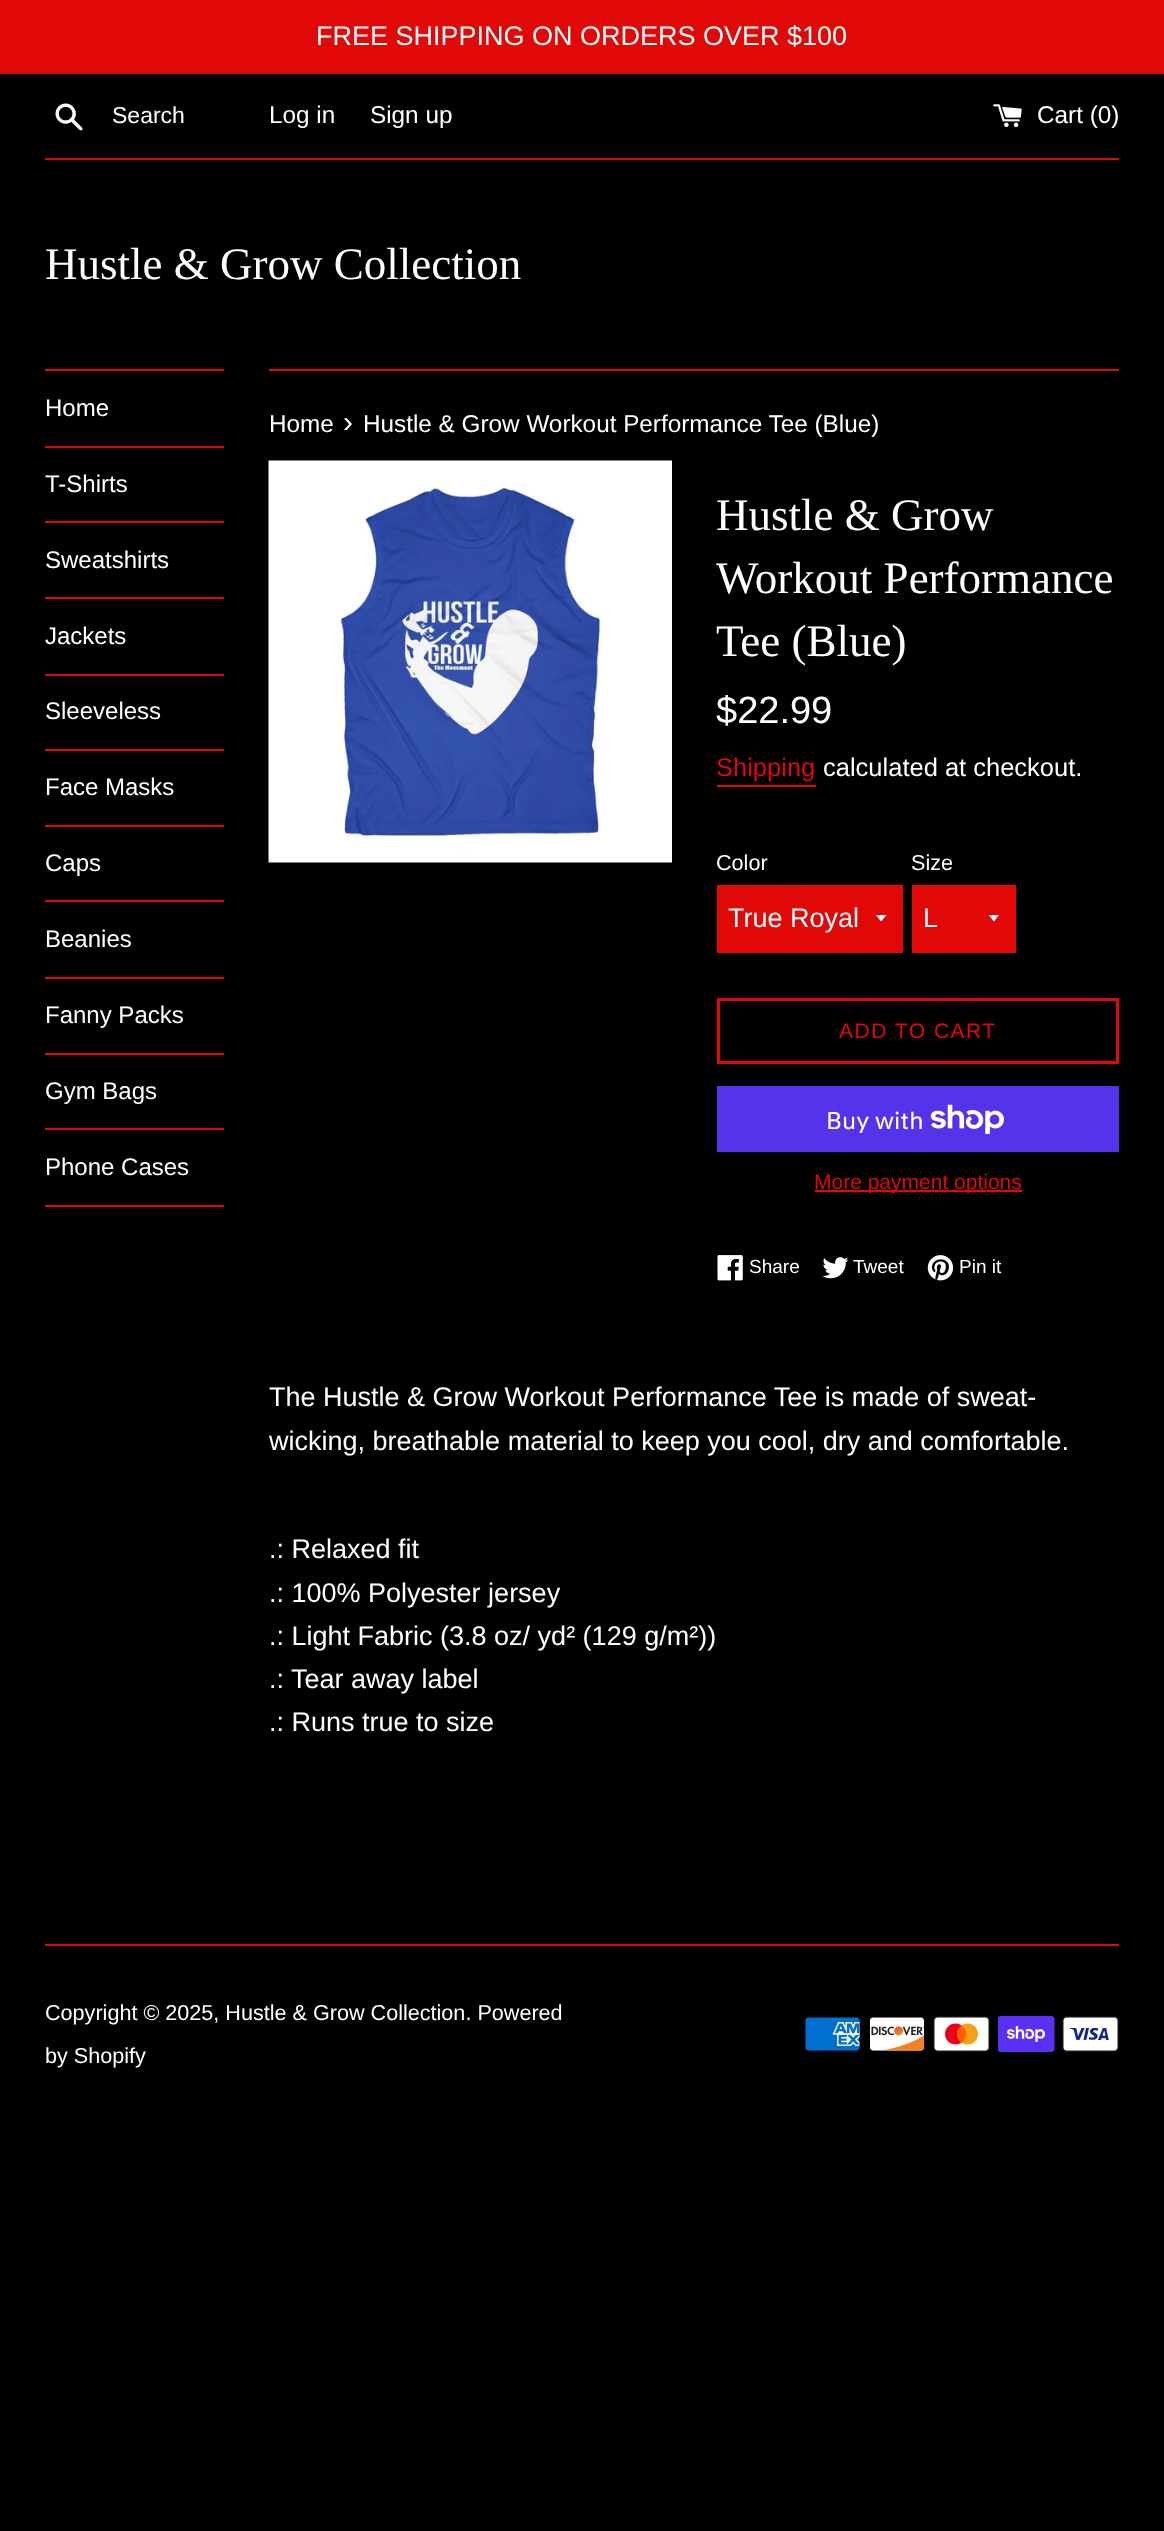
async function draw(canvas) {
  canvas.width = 1164
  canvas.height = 2531
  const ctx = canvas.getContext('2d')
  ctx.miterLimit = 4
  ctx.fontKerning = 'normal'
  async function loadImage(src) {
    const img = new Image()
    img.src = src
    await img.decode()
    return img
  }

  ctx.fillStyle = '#000'
  ctx.fillRect(0, 0, 1164, 2531)
  ctx.fillStyle = '#e10808'
  ctx.fillRect(0, 0, 1164, 74)
  ctx.font = '27px Liberation Sans'
  ctx.fillStyle = '#fff'
  ctx.fillText('FREE SHIPPING ON ORDERS OVER $100', 316, 45)
  ctx.drawImage(await loadImage('image0.png'), 55, 103, 28, 28)
  ctx.font = '23px Liberation Sans'
  ctx.fillText('Search', 112, 123)
  ctx.font = '24.3px Liberation Sans'
  ctx.fillText('Log in', 269, 123)
  ctx.fillText('Sign up', 370, 123)
  ctx.drawImage(await loadImage('image1.png'), 993, 104, 29, 24)
  ctx.fillText('Cart (0)', 1037, 123)
  ctx.fillStyle = '#e10808'
  ctx.fillRect(45, 158, 1074, 2)
  ctx.font = '45px Liberation Serif'
  ctx.fillStyle = '#fff'
  ctx.fillText('Hustle & Grow Collection', 45, 279)
  ctx.fillStyle = '#e10808'
  ctx.fillRect(45, 369, 179, 2)
  ctx.fillRect(45, 446, 179, 2)
  ctx.font = '24px Liberation Sans'
  ctx.fillStyle = '#fff'
  ctx.fillText('Home', 45, 416)
  ctx.fillStyle = '#e10808'
  ctx.fillRect(45, 521, 179, 2)
  ctx.fillStyle = '#fff'
  ctx.fillText('T-Shirts', 45, 492)
  ctx.fillStyle = '#e10808'
  ctx.fillRect(45, 597, 179, 2)
  ctx.fillStyle = '#fff'
  ctx.fillText('Sweatshirts', 45, 568)
  ctx.fillStyle = '#e10808'
  ctx.fillRect(45, 674, 179, 2)
  ctx.fillStyle = '#fff'
  ctx.fillText('Jackets', 45, 644)
  ctx.fillStyle = '#e10808'
  ctx.fillRect(45, 749, 179, 2)
  ctx.fillStyle = '#fff'
  ctx.fillText('Sleeveless', 45, 719)
  ctx.fillStyle = '#e10808'
  ctx.fillRect(45, 825, 179, 2)
  ctx.fillStyle = '#fff'
  ctx.fillText('Face Masks', 45, 795)
  ctx.fillStyle = '#e10808'
  ctx.fillRect(45, 900, 179, 2)
  ctx.fillStyle = '#fff'
  ctx.fillText('Caps', 45, 871)
  ctx.fillStyle = '#e10808'
  ctx.fillRect(45, 977, 179, 2)
  ctx.fillStyle = '#fff'
  ctx.fillText('Beanies', 45, 947)
  ctx.fillStyle = '#e10808'
  ctx.fillRect(45, 1053, 179, 2)
  ctx.fillStyle = '#fff'
  ctx.fillText('Fanny Packs', 45, 1023)
  ctx.fillStyle = '#e10808'
  ctx.fillRect(45, 1128, 179, 2)
  ctx.fillStyle = '#fff'
  ctx.fillText('Gym Bags', 45, 1099)
  ctx.fillStyle = '#e10808'
  ctx.fillRect(45, 1205, 179, 2)
  ctx.fillStyle = '#fff'
  ctx.fillText('Phone Cases', 45, 1175)
  ctx.fillStyle = '#e10808'
  ctx.fillRect(269, 369, 850, 2)
  ctx.font = '24.3px Liberation Sans'
  ctx.fillStyle = '#fff'
  ctx.fillText('Home', 269, 432)
  ctx.font = '30px Liberation Sans'
  ctx.fillText('›', 343, 432)
  ctx.font = '24.3px Liberation Sans'
  ctx.fillText('Hustle & Grow Workout Performance Tee (Blue)', 363, 432)
  ctx.drawImage(await loadImage('image2.png'), 268, 460, 404, 403)
  ctx.font = '45px Liberation Serif'
  ctx.fillText('Hustle & Grow', 716, 530)
  ctx.fillText('Workout Performance', 716, 593)
  ctx.fillText('Tee (Blue)', 716, 656)
  ctx.font = '38px Liberation Sans'
  ctx.fillText('$22.99', 716, 723)
  ctx.font = '25.5px Liberation Sans'
  ctx.fillStyle = '#e10808'
  ctx.fillText('Shipping', 716, 776)
  ctx.fillRect(717, 785, 99, 2)
  ctx.fillStyle = '#fff'
  ctx.fillText('calculated at checkout.', 823, 776)
  ctx.font = '21.6px Liberation Sans'
  ctx.fillText('Color', 716, 870)
  ctx.fillStyle = '#e10808'
  ctx.fillRect(717, 885, 186, 68)
  ctx.fillStyle = '#fff'
  ctx.beginPath()
  ctx.moveTo(876, 915)
  ctx.lineTo(881, 921.5)
  ctx.lineTo(886.5, 915)
  ctx.closePath()
  ctx.fill()
  ctx.font = '27px Liberation Sans'
  ctx.fillText('True Royal', 728, 927)
  ctx.font = '21.6px Liberation Sans'
  ctx.fillText('Size', 911, 870)
  ctx.fillStyle = '#e10808'
  ctx.fillRect(912, 885, 104, 68)
  ctx.fillStyle = '#fff'
  ctx.beginPath()
  ctx.moveTo(988.5, 915)
  ctx.lineTo(994, 921.5)
  ctx.lineTo(999, 915)
  ctx.closePath()
  ctx.fill()
  ctx.font = '27px Liberation Sans'
  ctx.fillText('L', 923, 927)
  ctx.strokeStyle = '#e10808'
  ctx.lineWidth = 3
  ctx.strokeRect(718.5, 999.5, 399, 63)
  ctx.letterSpacing = '1.5px'
  ctx.font = '21px Liberation Sans'
  ctx.fillStyle = '#e10808'
  ctx.fillText('ADD TO CART', 839, 1038)
  ctx.fillStyle = '#5433eb'
  ctx.fillRect(717, 1086, 402, 66)
  ctx.letterSpacing = '0px'
  ctx.font = '24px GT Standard'
  ctx.fillStyle = '#fff'
  ctx.fillText('Buy with', 826, 1129)
  ctx.drawImage(await loadImage('image3.png'), 930, 1104, 74, 30)
  ctx.fillStyle = '#e10808'
  ctx.fillRect(815, 1190, 207, 2)
  ctx.font = '21px Liberation Sans'
  ctx.fillText('More payment options', 814, 1189)
  ctx.drawImage(await loadImage('image4.png'), 717, 1255, 26, 26)
  ctx.font = '19px Liberation Sans'
  ctx.fillStyle = '#fff'
  ctx.fillText('Share', 749, 1273)
  ctx.drawImage(await loadImage('image5.png'), 822, 1257, 27, 22)
  ctx.fillText('Tweet', 853, 1273)
  ctx.drawImage(await loadImage('image6.png'), 927, 1255, 27, 26)
  ctx.fillText('Pin it', 959, 1273)
  ctx.font = '27px Liberation Sans'
  ctx.fillText('The Hustle & Grow Workout Performance Tee is made of sweat-', 269, 1406)
  ctx.fillText('wicking, breathable material to keep you cool, dry and comfortable.', 269, 1450)
  ctx.fillText('.: Relaxed fit', 269, 1558)
  ctx.fillText('.: 100% Polyester jersey', 269, 1602)
  ctx.fillText('.: Light Fabric (3.8 oz/ yd² (129 g/m²))', 269, 1645)
  ctx.fillText('.: Tear away label', 269, 1688)
  ctx.fillText('.: Runs true to size', 269, 1731)
  ctx.fillStyle = '#e10808'
  ctx.fillRect(45, 1944, 1074, 2)
  ctx.font = '21.6px Liberation Sans'
  ctx.fillStyle = '#fff'
  ctx.fillText('Copyright © 2025, Hustle & Grow Collection. Powered', 45, 2020)
  ctx.fillText('by Shopify', 45, 2063)
  ctx.drawImage(await loadImage('image7.png'), 805, 2017, 55, 34)
  ctx.drawImage(await loadImage('image8.png'), 870, 2017, 55, 34)
  ctx.drawImage(await loadImage('image9.png'), 933, 2016, 57, 36)
  ctx.drawImage(await loadImage('image10.png'), 998, 2016, 57, 36)
  ctx.drawImage(await loadImage('image11.png'), 1062, 2016, 57, 36)
}

draw(document.querySelector('canvas'))
